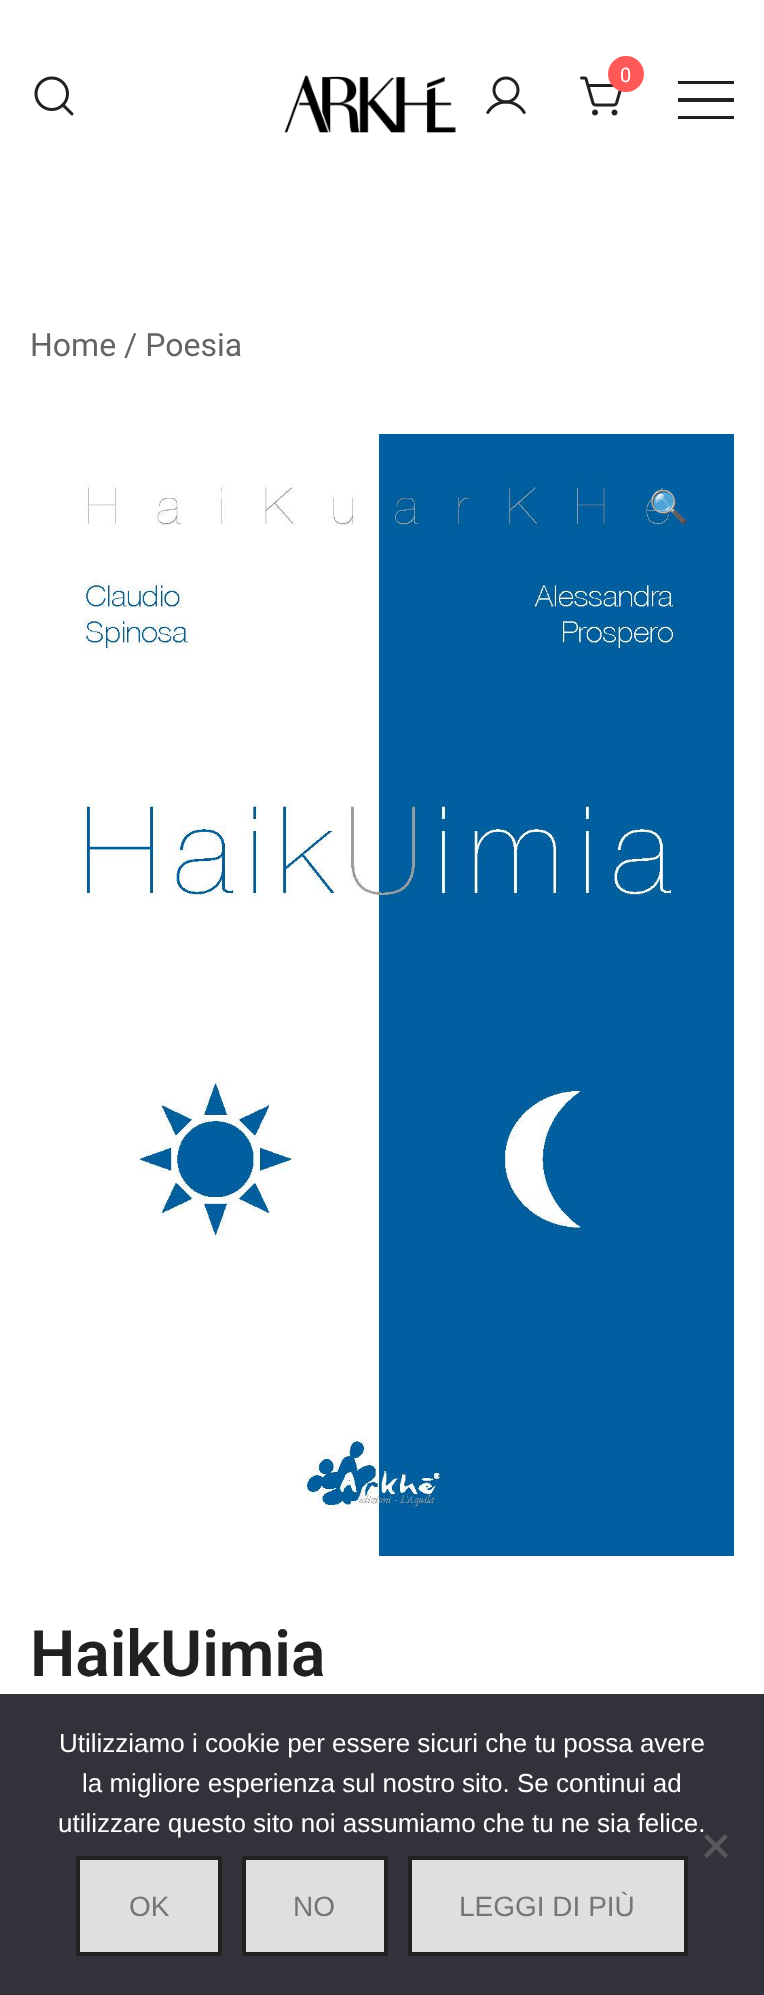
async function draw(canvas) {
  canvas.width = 764
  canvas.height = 1995
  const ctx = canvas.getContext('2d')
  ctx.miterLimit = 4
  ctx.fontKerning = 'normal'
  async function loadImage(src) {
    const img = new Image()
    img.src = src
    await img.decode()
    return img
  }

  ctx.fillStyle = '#fff'
  ctx.fillRect(0, 0, 764, 1995)
  ctx.drawImage(await loadImage('image0.png'), 34, 76, 40, 40)
  ctx.drawImage(await loadImage('image1.png'), 284, 75, 172, 58)
  ctx.drawImage(await loadImage('image2.png'), 486, 76, 40, 38)
  ctx.drawImage(await loadImage('image3.png'), 580, 76, 42, 40)
  ctx.fillStyle = '#ff5858'
  ctx.beginPath()
  ctx.arc(626, 74, 17, 0, 2 * Math.PI)
  ctx.fill()
  ctx.strokeStyle = '#ff5858'
  ctx.lineWidth = 2
  ctx.stroke()
  ctx.font = '20px Roboto'
  ctx.fillStyle = '#fff'
  ctx.fillText('0', 620, 82)
  ctx.fillStyle = '#212121'
  ctx.fillRect(678, 81, 56, 3)
  ctx.fillRect(678, 98, 56, 4)
  ctx.fillRect(678, 116, 56, 3)
  ctx.font = '32px Roboto'
  ctx.fillStyle = '#646464'
  ctx.fillText('Home / Poesia', 30, 356)
  ctx.drawImage(await loadImage('image4.png'), 84, 434, 650, 1122)
  ctx.font = '32px Noto Color Emoji'
  ctx.fillStyle = '#212121'
  ctx.fillText('🔍', 649, 518)
  ctx.font = '600 64px Roboto'
  ctx.fillText('HaikUimia', 30, 1676)
  ctx.fillStyle = '#32323a'
  ctx.fillRect(0, 1694, 764, 301)
  ctx.font = '26px Liberation Sans'
  ctx.fillStyle = '#fff'
  ctx.fillText('Utilizziamo i cookie per essere sicuri che tu possa avere', 59, 1752)
  ctx.fillText('la migliore esperienza sul nostro sito. Se continui ad', 82, 1792)
  ctx.fillText('utilizzare questo sito noi assumiamo che tu ne sia felice.', 58, 1832)
  ctx.fillStyle = '#59595d'
  ctx.beginPath()
  ctx.moveTo(725, 1834)
  ctx.lineTo(728, 1837)
  ctx.lineTo(707, 1858)
  ctx.lineTo(704, 1855)
  ctx.closePath()
  ctx.fill()
  ctx.beginPath()
  ctx.moveTo(704, 1837)
  ctx.lineTo(707, 1834)
  ctx.lineTo(728, 1855)
  ctx.lineTo(725, 1858)
  ctx.closePath()
  ctx.fill()
  ctx.fillStyle = '#dfdfdf'
  ctx.beginPath()
  ctx.rect(78, 1858, 142, 96)
  ctx.fill()
  ctx.strokeStyle = '#212121'
  ctx.lineWidth = 4
  ctx.stroke()
  ctx.font = '28px Liberation Sans'
  ctx.fillStyle = '#757575'
  ctx.fillText('OK', 129, 1916)
  ctx.fillStyle = '#dfdfdf'
  ctx.beginPath()
  ctx.rect(244, 1858, 142, 96)
  ctx.fill()
  ctx.stroke()
  ctx.fillStyle = '#757575'
  ctx.fillText('NO', 293, 1916)
  ctx.fillStyle = '#dfdfdf'
  ctx.beginPath()
  ctx.rect(410, 1858, 276, 96)
  ctx.fill()
  ctx.stroke()
  ctx.fillStyle = '#757575'
  ctx.fillText('LEGGI DI PIÙ', 459, 1916)
}

draw(document.querySelector('canvas'))
